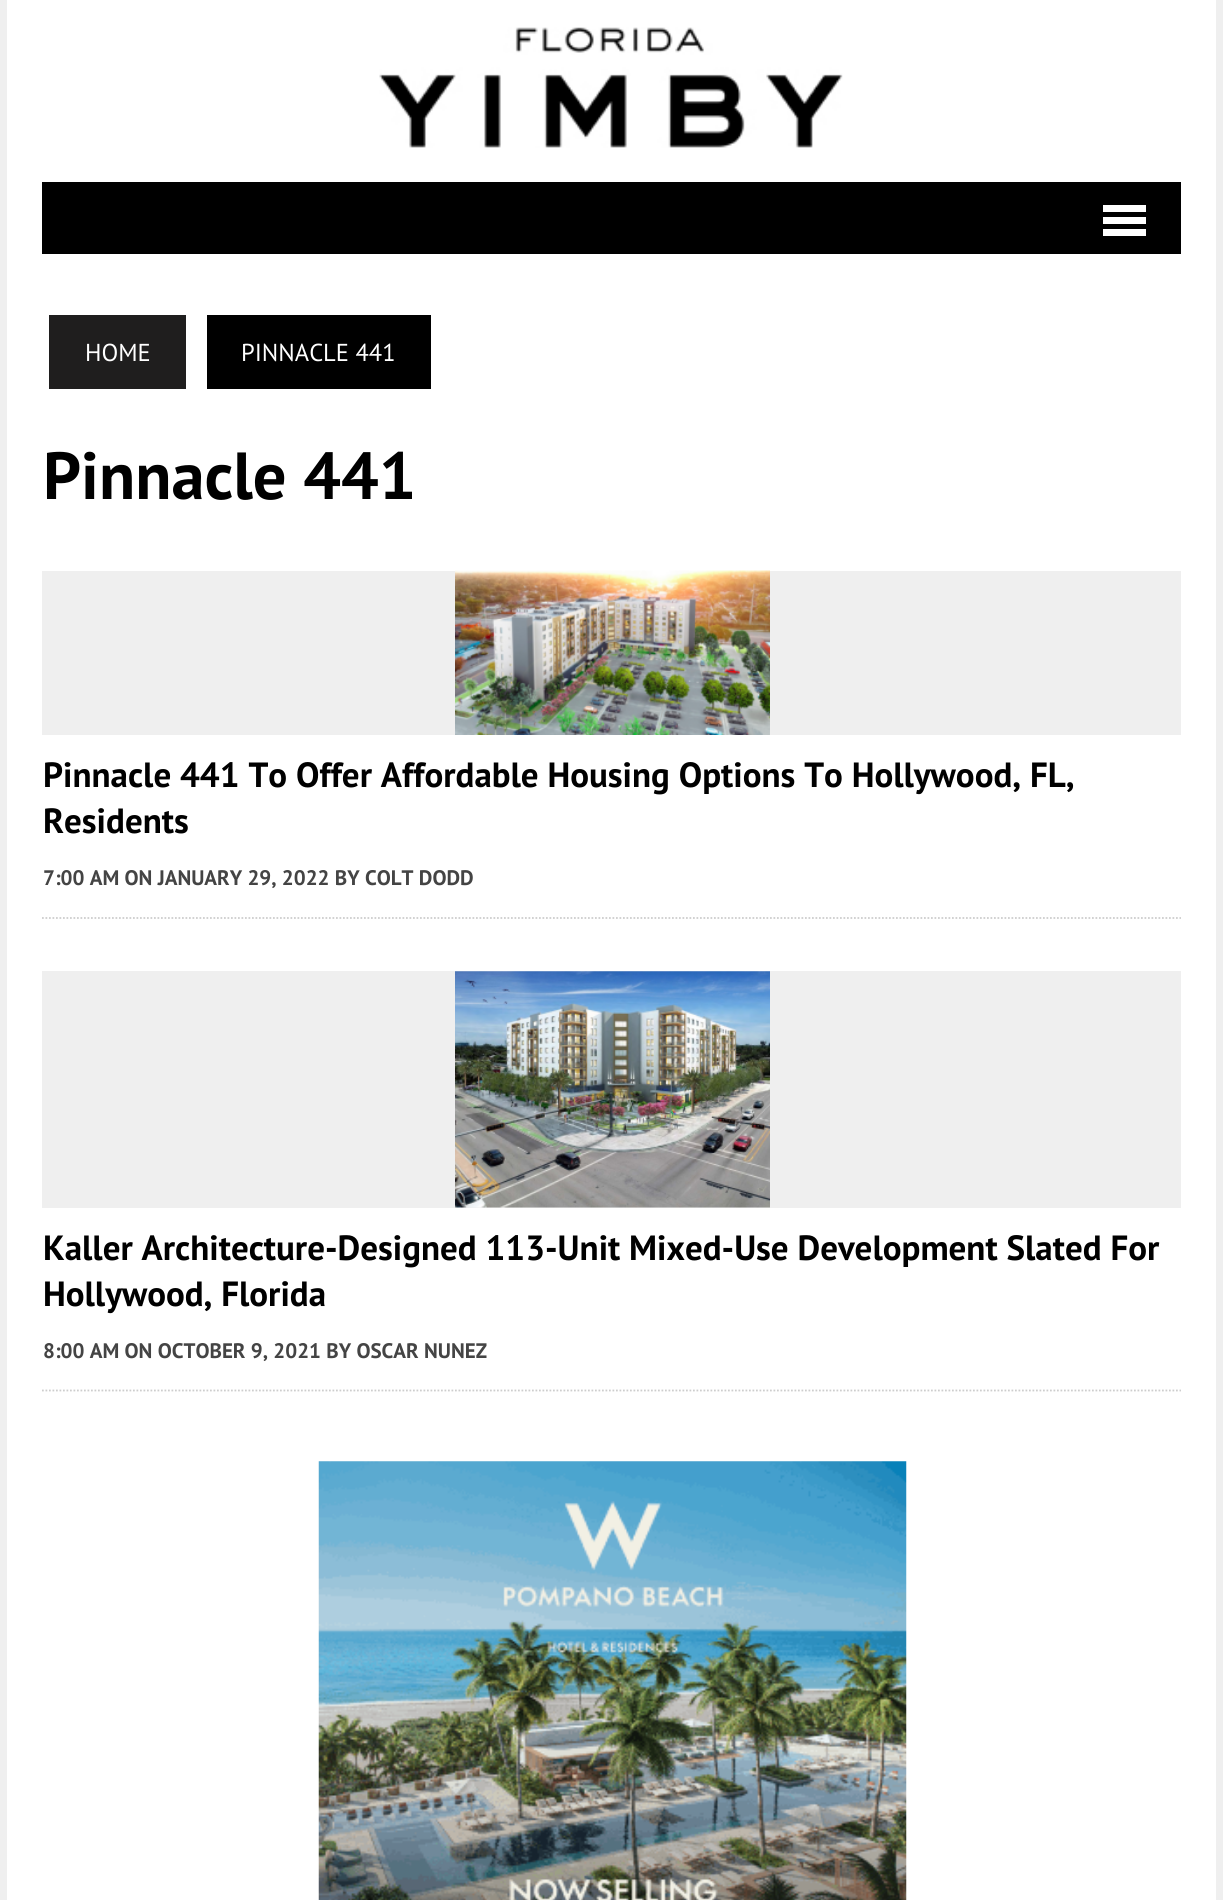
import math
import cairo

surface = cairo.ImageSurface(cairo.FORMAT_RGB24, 1223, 1900)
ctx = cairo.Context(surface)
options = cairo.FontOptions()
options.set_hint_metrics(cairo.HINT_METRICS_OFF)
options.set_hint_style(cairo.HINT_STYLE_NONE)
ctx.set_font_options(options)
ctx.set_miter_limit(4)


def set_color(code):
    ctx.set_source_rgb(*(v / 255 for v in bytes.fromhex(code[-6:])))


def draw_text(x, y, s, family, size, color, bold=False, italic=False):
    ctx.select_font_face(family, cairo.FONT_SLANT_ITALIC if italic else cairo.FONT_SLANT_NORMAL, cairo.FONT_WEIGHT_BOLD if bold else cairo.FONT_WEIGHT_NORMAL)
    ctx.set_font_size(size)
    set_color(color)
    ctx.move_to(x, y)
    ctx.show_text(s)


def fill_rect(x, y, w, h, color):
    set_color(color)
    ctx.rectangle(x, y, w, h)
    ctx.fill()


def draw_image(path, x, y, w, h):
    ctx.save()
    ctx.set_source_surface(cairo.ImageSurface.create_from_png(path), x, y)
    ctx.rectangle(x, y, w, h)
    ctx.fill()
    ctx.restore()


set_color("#efefef")
ctx.paint()
fill_rect(7, 0, 1209, 1900, "#ffffff")
draw_image("assets/img1.png", 379, 27, 464, 121)
fill_rect(42, 182, 1139, 72, "#000000")
fill_rect(1103, 205, 43, 7, "#ffffff")
fill_rect(1103, 217, 43, 7, "#ffffff")
fill_rect(1103, 229, 43, 7, "#ffffff")
fill_rect(49, 315, 137, 74, "#1f1e1e")
draw_text(85, 361, "HOME", "PT Sans", 24.5, "#ffffff")
fill_rect(207, 315, 224, 74, "#000000")
draw_text(241, 361, "PINNACLE 441", "PT Sans", 24.5, "#ffffff")
draw_text(43, 499, "Pinnacle 441", "PT Sans", 66.5, "#000000", bold=True)
fill_rect(42, 571, 1139, 164, "#efefef")
draw_image("assets/img2.png", 455, 570, 315, 165)
draw_text(43, 787, "Pinnacle 441 To Offer Affordable Housing Options To Hollywood, FL,", "PT Sans", 35, "#000000", bold=True)
draw_text(43, 833, "Residents", "PT Sans", 35, "#000000", bold=True)
draw_text(43, 885, "7:00 AM ON JANUARY 29, 2022 BY COLT DODD", "PT Sans", 21, "#444444", bold=True)
ctx.new_path()
ctx.move_to(42, 918)
ctx.line_to(1181, 918)
set_color("#cdcdcd")
ctx.set_line_width(1.8)
ctx.set_dash([1.75, 1.75])
ctx.stroke()
fill_rect(42, 971, 1139, 237, "#efefef")
draw_image("assets/img3.png", 455, 971, 315, 237)
draw_text(43, 1260, "Kaller Architecture-Designed 113-Unit Mixed-Use Development Slated For", "PT Sans", 35, "#000000", bold=True)
draw_text(43, 1306, "Hollywood, Florida", "PT Sans", 35, "#000000", bold=True)
draw_text(43, 1358, "8:00 AM ON OCTOBER 9, 2021 BY OSCAR NUNEZ", "PT Sans", 21, "#444444", bold=True)
ctx.new_path()
ctx.move_to(42, 1390.5)
ctx.line_to(1181, 1390.5)
set_color("#cdcdcd")
ctx.stroke()
draw_image("assets/img4.png", 318, 1461, 589, 439)
surface.write_to_png("output.png")
